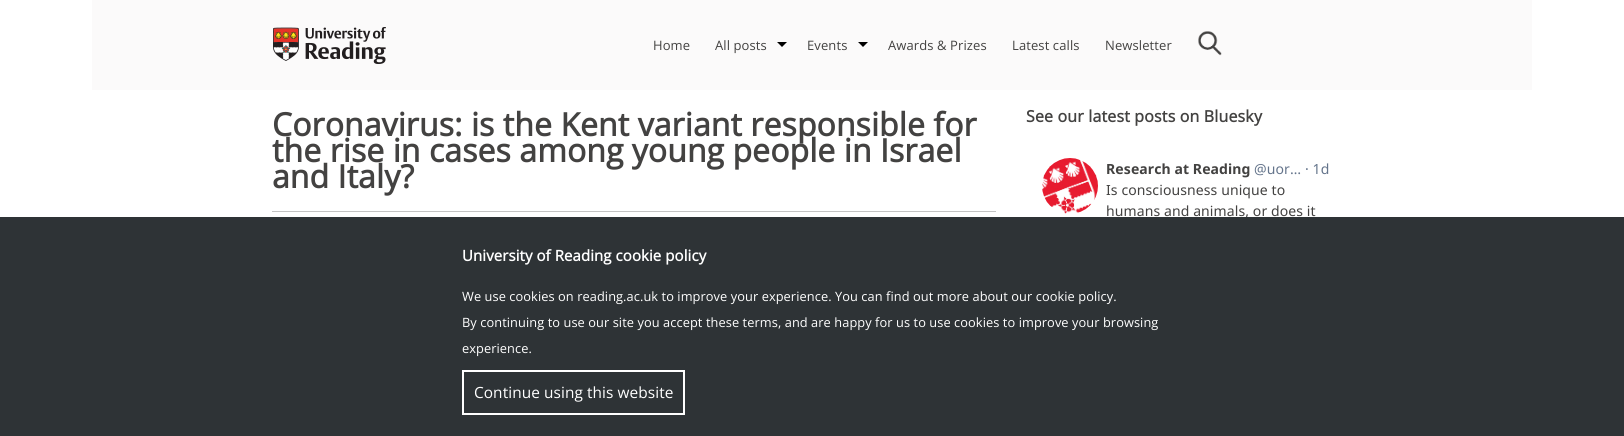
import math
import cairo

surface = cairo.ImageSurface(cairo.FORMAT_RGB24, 1624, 436)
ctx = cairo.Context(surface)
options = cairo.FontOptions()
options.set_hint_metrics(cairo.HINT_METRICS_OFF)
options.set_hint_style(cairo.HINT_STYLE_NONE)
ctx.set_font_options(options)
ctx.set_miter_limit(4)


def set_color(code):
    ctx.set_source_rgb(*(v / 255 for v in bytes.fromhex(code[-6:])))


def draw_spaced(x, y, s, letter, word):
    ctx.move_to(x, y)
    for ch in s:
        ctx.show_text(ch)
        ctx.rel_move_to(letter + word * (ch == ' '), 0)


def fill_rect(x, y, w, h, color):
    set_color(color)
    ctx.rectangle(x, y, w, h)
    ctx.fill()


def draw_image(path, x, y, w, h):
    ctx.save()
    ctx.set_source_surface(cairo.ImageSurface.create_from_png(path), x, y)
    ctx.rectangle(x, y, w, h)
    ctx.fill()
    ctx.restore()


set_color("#ffffff")
ctx.paint()
fill_rect(92, 0, 1440, 90, "#fbfafa")
draw_image("assets/img1.png", 273, 27, 113, 37)
ctx.select_font_face("Open Sans")
ctx.set_font_size(13)
set_color("#434241")
draw_spaced(653, 50, "Home", 0.1, 0)
draw_spaced(715, 50, "All posts", 0.1, 0)
set_color("#000000")
ctx.new_path()
ctx.move_to(777, 42)
ctx.line_to(787, 42)
ctx.line_to(782, 47)
ctx.close_path()
ctx.fill()
set_color("#434241")
draw_spaced(807, 50, "Events", 0.1, 0)
set_color("#000000")
ctx.new_path()
ctx.move_to(858, 42)
ctx.line_to(868, 42)
ctx.line_to(863, 47)
ctx.close_path()
ctx.fill()
set_color("#434241")
draw_spaced(888, 50, "Awards & Prizes", 0.1, 0)
draw_spaced(1012, 50, "Latest calls", 0.1, 0)
draw_spaced(1105, 50, "Newsletter", 0.1, 0)
draw_image("assets/img2.png", 1198, 31, 24, 25)
ctx.select_font_face("Open Sans", cairo.FONT_SLANT_NORMAL, cairo.FONT_WEIGHT_BOLD)
ctx.set_font_size(32)
draw_spaced(272, 136, "Coronavirus: is the Kent variant responsible for", 0.08, 0)
draw_spaced(272, 162, "the rise in cases among young people in Israel", 0.08, 0)
draw_spaced(272, 188, "and Italy?", 0.08, 0)
fill_rect(272, 211, 724, 1, "#c3c3c3")
ctx.set_font_size(16)
set_color("#434241")
draw_spaced(1026, 122, "See our latest posts on Bluesky", 0.15, 0)
draw_image("assets/img3.png", 1042, 158, 56, 56)
ctx.select_font_face("Noto Sans", cairo.FONT_SLANT_NORMAL, cairo.FONT_WEIGHT_BOLD)
ctx.set_font_size(14)
draw_spaced(1106, 174, "Research at Reading", 0.1, 0)
ctx.select_font_face("Noto Sans")
set_color("#64748b")
draw_spaced(1254, 174, "@uor…", 0.1, 0)
draw_spaced(1305, 174, "· 1d", 0.1, 0)
set_color("#434241")
draw_spaced(1106, 195, "Is consciousness unique to", 0.1, 0)
draw_spaced(1106, 216, "humans and animals, or does it", 0.1, 0)
fill_rect(0, 217, 1624, 219, "#2e3336")
ctx.select_font_face("Open Sans", cairo.FONT_SLANT_NORMAL, cairo.FONT_WEIGHT_BOLD)
ctx.set_font_size(15)
set_color("#ffffff")
draw_spaced(462, 261, "University of Reading cookie policy", 0.08, 0)
ctx.select_font_face("Open Sans")
ctx.set_font_size(12.8)
draw_spaced(462, 301, "We use cookies on reading.ac.uk to improve your experience. You can find out more about our cookie policy.", 0.08, 0)
draw_spaced(462, 327, "By continuing to use our site you accept these terms, and are happy for us to use cookies to improve your browsing", 0.08, 0)
draw_spaced(462, 353, "experience.", 0.08, 0)
ctx.rectangle(463, 371, 221, 43)
ctx.stroke()
ctx.set_font_size(15.4)
draw_spaced(474, 398, "Continue using this website", 0.08, 0)
surface.write_to_png("output.png")
